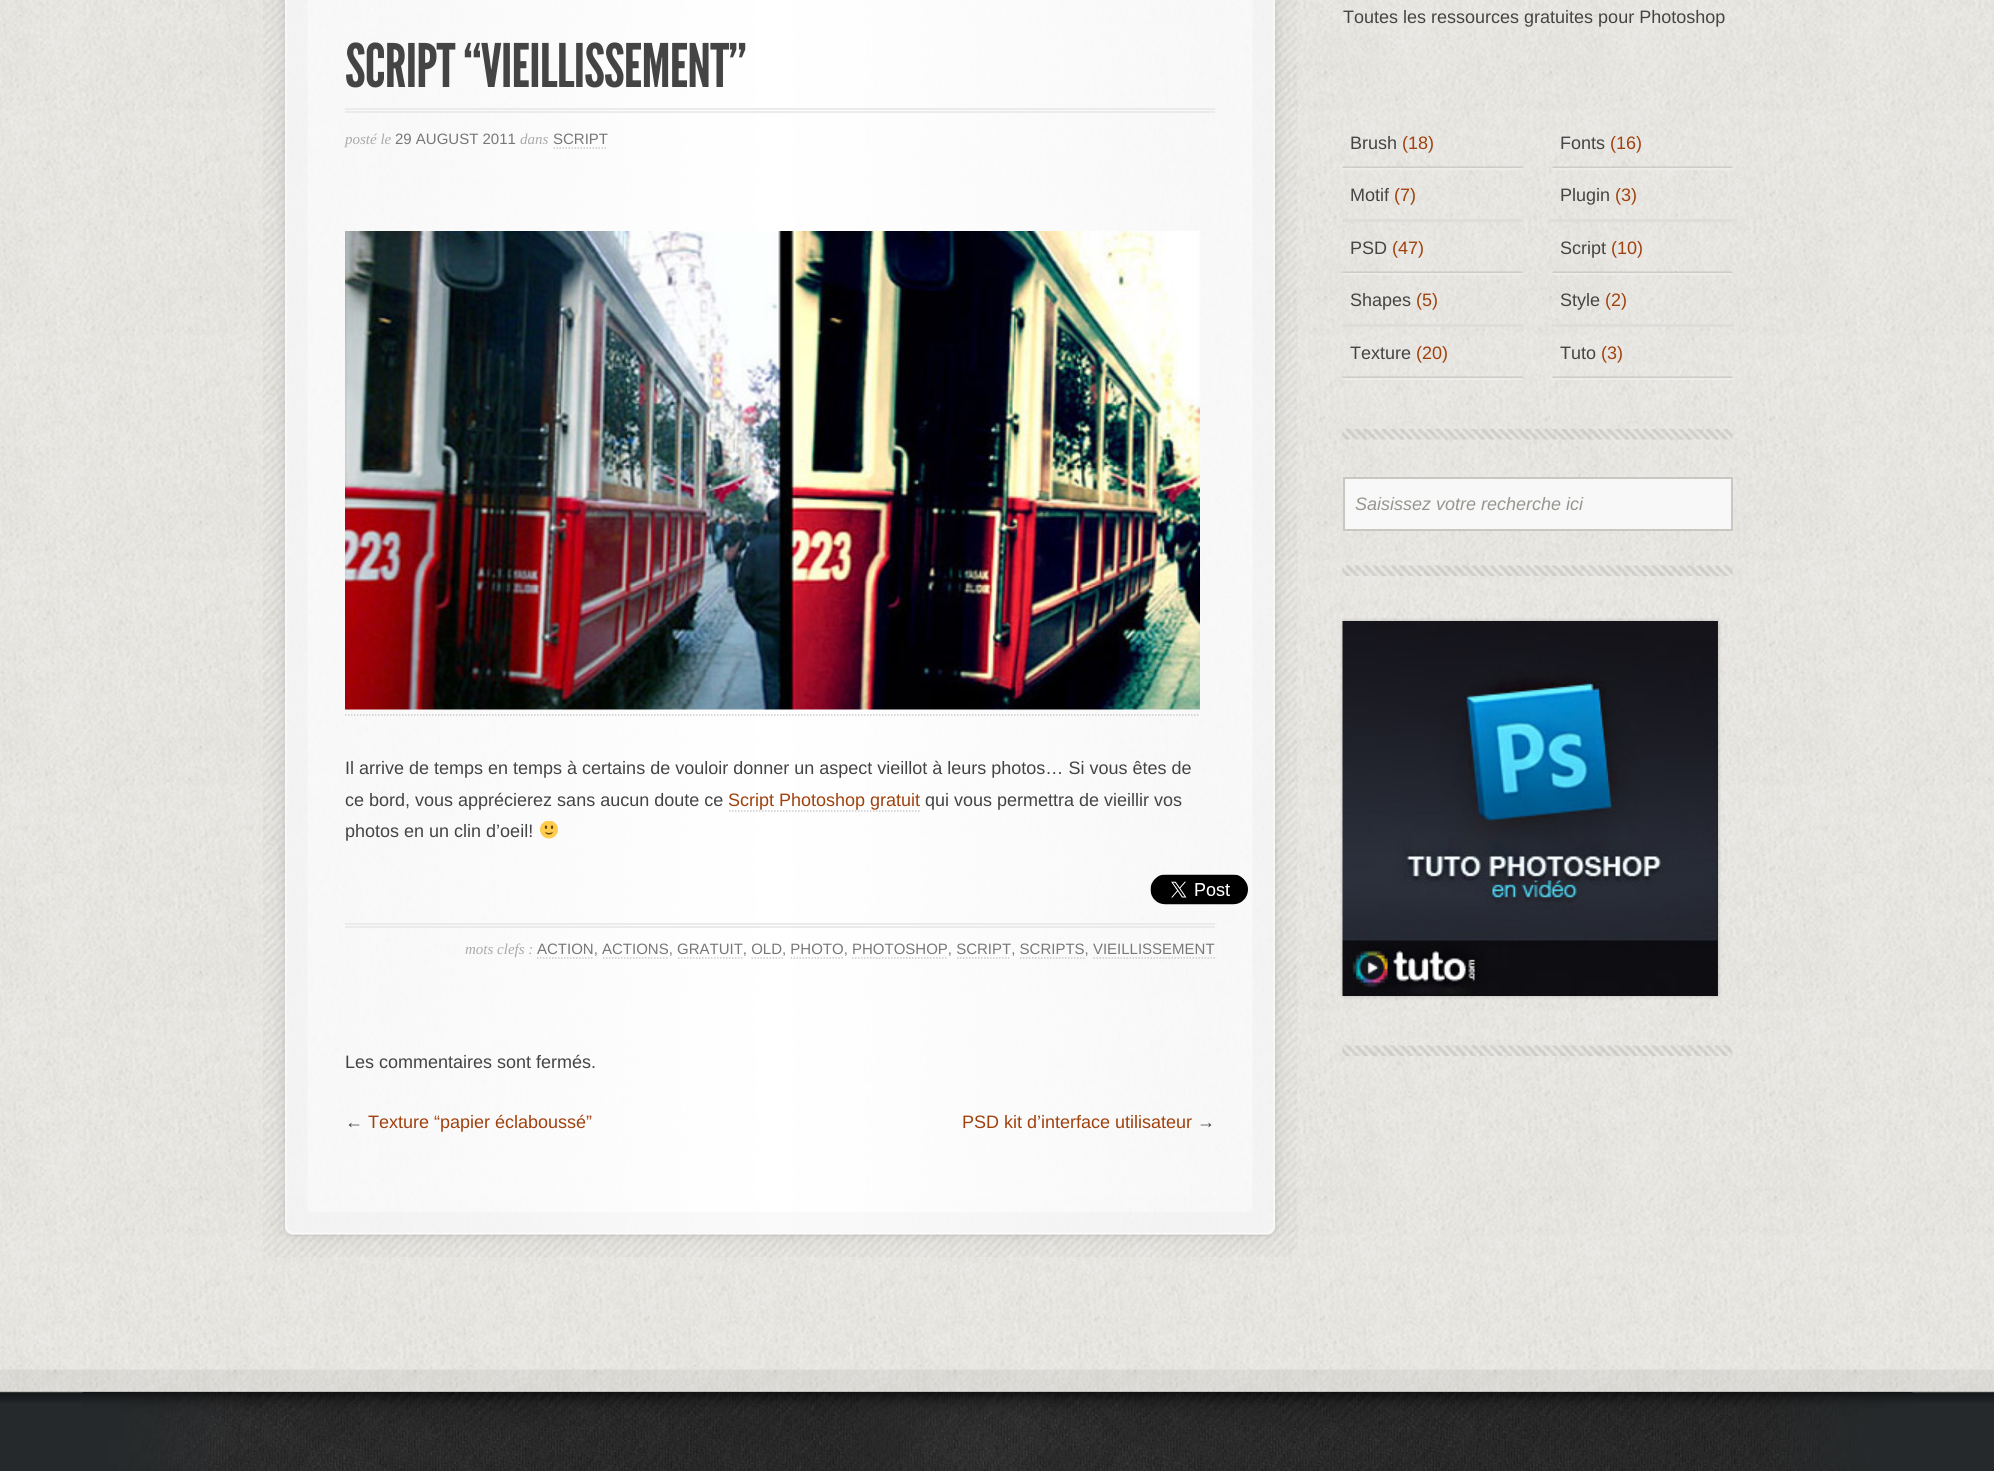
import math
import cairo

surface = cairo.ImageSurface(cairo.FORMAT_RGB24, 1994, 1471)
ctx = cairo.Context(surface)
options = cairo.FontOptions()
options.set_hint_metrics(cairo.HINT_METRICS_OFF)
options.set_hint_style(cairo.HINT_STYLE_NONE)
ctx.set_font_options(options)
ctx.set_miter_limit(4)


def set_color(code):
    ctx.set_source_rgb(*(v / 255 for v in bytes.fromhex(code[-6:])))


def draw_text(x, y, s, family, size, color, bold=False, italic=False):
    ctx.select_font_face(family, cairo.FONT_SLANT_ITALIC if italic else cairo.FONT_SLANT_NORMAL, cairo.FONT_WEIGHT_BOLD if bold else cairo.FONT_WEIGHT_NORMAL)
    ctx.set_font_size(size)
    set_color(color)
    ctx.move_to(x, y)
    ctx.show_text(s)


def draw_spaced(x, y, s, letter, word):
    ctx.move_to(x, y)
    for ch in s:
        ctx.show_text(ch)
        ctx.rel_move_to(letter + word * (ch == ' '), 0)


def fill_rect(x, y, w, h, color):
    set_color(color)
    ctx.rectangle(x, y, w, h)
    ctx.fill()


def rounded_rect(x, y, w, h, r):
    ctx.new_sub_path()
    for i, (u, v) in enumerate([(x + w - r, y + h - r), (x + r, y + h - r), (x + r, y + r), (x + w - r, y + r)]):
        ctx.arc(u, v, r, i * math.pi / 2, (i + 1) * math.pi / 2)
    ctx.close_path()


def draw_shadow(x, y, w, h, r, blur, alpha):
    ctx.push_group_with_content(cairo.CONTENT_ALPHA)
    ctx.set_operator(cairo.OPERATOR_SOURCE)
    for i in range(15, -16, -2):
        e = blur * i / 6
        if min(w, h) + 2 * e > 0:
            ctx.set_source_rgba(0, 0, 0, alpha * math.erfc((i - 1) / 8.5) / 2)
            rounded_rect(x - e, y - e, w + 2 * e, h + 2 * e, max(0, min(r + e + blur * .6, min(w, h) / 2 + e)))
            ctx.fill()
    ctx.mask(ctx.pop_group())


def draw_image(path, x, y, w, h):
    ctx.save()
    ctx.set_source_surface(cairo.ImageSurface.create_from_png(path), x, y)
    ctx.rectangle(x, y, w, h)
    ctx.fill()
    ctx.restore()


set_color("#ffffff")
ctx.paint()
draw_image("assets/img1.png", 0, 0, 1994, 1370)
draw_image("assets/img2.png", 263, 0, 1034, 1197)
fill_rect(345, 108, 870, 2, "#ebebeb")
fill_rect(345, 111, 870, 2, "#ebebeb")
ctx.select_font_face("League Gothic")
ctx.set_font_size(60)
set_color("#444444")
draw_spaced(345, 87, "SCRIPT “VIEILLISSEMENT”", -0.75, 0)
draw_text(345, 144, "posté le", "Liberation Serif", 15, "#aaaaaa", italic=True)
draw_text(395, 144, "29 AUGUST 2011", "Liberation Sans", 15, "#777777")
draw_text(520, 144, "dans", "Liberation Serif", 15, "#aaaaaa", italic=True)
draw_text(553, 144, "SCRIPT", "Liberation Sans", 15, "#777777")
ctx.new_path()
ctx.move_to(553.5, 148)
ctx.line_to(607.5, 148)
set_color("#cccccc")
ctx.set_line_width(1.5)
ctx.set_dash([1.5, 1.5])
ctx.stroke()
draw_image("assets/img3.png", 345, 231, 855, 479)
ctx.new_path()
ctx.move_to(345, 715)
ctx.line_to(1200, 715)
ctx.stroke()
draw_text(345, 774, "Il arrive de temps en temps à certains de vouloir donner un aspect vieillot à leurs photos… Si vous êtes de", "Liberation Sans", 18, "#444444")
draw_text(345, 806, "ce bord, vous apprécierez sans aucun doute ce", "Liberation Sans", 18, "#444444")
draw_text(728, 806, "Script Photoshop gratuit", "Liberation Sans", 18, "#a0410d")
ctx.new_path()
ctx.move_to(729, 811)
ctx.line_to(921, 811)
set_color("#cccccc")
ctx.stroke()
draw_text(925, 806, "qui vous permettra de vieillir vos", "Liberation Sans", 18, "#444444")
draw_text(345, 837, "photos en un clin d’oeil!", "Liberation Sans", 18, "#444444")
draw_image("assets/img4.png", 540, 821, 18, 18)
draw_image("assets/img5.png", 1150, 874, 98, 31)
fill_rect(345, 923, 870, 2, "#ebebeb")
fill_rect(345, 926, 870, 2, "#ebebeb")
draw_text(465, 954, "mots clefs :", "Liberation Serif", 15, "#aaaaaa", italic=True)
draw_text(537, 954, "ACTION, ACTIONS, GRATUIT, OLD, PHOTO, PHOTOSHOP, SCRIPT, SCRIPTS, VIEILLISSEMENT", "Liberation Sans", 15, "#777777")
ctx.new_path()
ctx.move_to(537, 958)
ctx.line_to(594, 958)
set_color("#cccccc")
ctx.stroke()
ctx.new_path()
ctx.move_to(603, 958)
ctx.line_to(669, 958)
ctx.stroke()
ctx.new_path()
ctx.move_to(678, 958)
ctx.line_to(742.5, 958)
ctx.stroke()
ctx.new_path()
ctx.move_to(751.5, 958)
ctx.line_to(783, 958)
ctx.stroke()
ctx.new_path()
ctx.move_to(790.5, 958)
ctx.line_to(844.5, 958)
ctx.stroke()
ctx.new_path()
ctx.move_to(852, 958)
ctx.line_to(948, 958)
ctx.stroke()
ctx.new_path()
ctx.move_to(957, 958)
ctx.line_to(1011, 958)
ctx.stroke()
ctx.new_path()
ctx.move_to(1020, 958)
ctx.line_to(1084.5, 958)
ctx.stroke()
ctx.new_path()
ctx.move_to(1093.5, 958)
ctx.line_to(1215, 958)
ctx.stroke()
draw_text(345, 1068, "Les commentaires sont fermés.", "Liberation Sans", 18, "#444444")
draw_text(345, 1128, "←", "Liberation Sans", 18, "#444444")
draw_text(368, 1128, "Texture “papier éclaboussé”", "Liberation Sans", 18, "#a0410d")
draw_text(962, 1128, "PSD kit d’interface utilisateur", "Liberation Sans", 18, "#a0410d")
draw_text(1197, 1128, "→", "Liberation Sans", 18, "#444444")
draw_image("assets/img6.png", 263, 1197, 1034, 60)
draw_text(1343, 23, "Toutes les ressources gratuites pour Photoshop", "Liberation Sans", 18, "#444444")
draw_image("assets/img7.png", 1342, 429, 391, 11)
draw_image("assets/img8.png", 1342, 166, 181, 4)
draw_text(1350, 149, "Brush", "Liberation Sans", 18, "#444444")
draw_text(1402, 149, "(18)", "Liberation Sans", 18, "#a0410d")
draw_image("assets/img9.png", 1552, 166, 181, 4)
draw_text(1560, 149, "Fonts", "Liberation Sans", 18, "#444444")
draw_text(1610, 149, "(16)", "Liberation Sans", 18, "#a0410d")
fill_rect(1342, 219, 181, 3, "#deddda")
draw_text(1350, 201, "Motif", "Liberation Sans", 18, "#444444")
draw_text(1394, 201, "(7)", "Liberation Sans", 18, "#a0410d")
fill_rect(1552, 219, 181, 3, "#deddda")
draw_text(1560, 201, "Plugin", "Liberation Sans", 18, "#444444")
draw_text(1615, 201, "(3)", "Liberation Sans", 18, "#a0410d")
draw_image("assets/img10.png", 1342, 271, 181, 4)
draw_text(1350, 254, "PSD", "Liberation Sans", 18, "#444444")
draw_text(1392, 254, "(47)", "Liberation Sans", 18, "#a0410d")
draw_image("assets/img11.png", 1552, 271, 181, 4)
draw_text(1560, 254, "Script", "Liberation Sans", 18, "#444444")
draw_text(1611, 254, "(10)", "Liberation Sans", 18, "#a0410d")
fill_rect(1342, 324, 181, 3, "#deddda")
draw_text(1350, 306, "Shapes", "Liberation Sans", 18, "#444444")
draw_text(1416, 306, "(5)", "Liberation Sans", 18, "#a0410d")
fill_rect(1552, 324, 181, 3, "#deddda")
draw_text(1560, 306, "Style", "Liberation Sans", 18, "#444444")
draw_text(1605, 306, "(2)", "Liberation Sans", 18, "#a0410d")
draw_image("assets/img12.png", 1342, 376, 181, 4)
draw_text(1350, 359, "Texture", "Liberation Sans", 18, "#444444")
draw_text(1416, 359, "(20)", "Liberation Sans", 18, "#a0410d")
draw_image("assets/img13.png", 1552, 376, 181, 4)
draw_text(1560, 359, "Tuto", "Liberation Sans", 18, "#444444")
draw_text(1601, 359, "(3)", "Liberation Sans", 18, "#a0410d")
draw_image("assets/img14.png", 1342, 565, 391, 11)
set_color("#f9f8f8")
ctx.rectangle(1344, 478, 388, 52)
ctx.fill_preserve()
set_color("#c8c7c2")
ctx.set_line_width(2)
ctx.set_dash([])
ctx.stroke()
draw_text(1355, 510, "Saisissez votre recherche ici", "Liberation Sans", 18, "#96958f", italic=True)
draw_image("assets/img15.png", 1342, 1045, 391, 11)
set_color("#000000")
draw_shadow(1343, 621, 375, 375, 0, 2, 0.2)
fill_rect(1717, 621, 1, 375, "#202321")
draw_image("assets/img16.png", 1342, 621, 376, 375)
fill_rect(0, 1403, 1994, 68, "#25292b")
draw_image("assets/img17.png", 0, 1369, 1994, 34)
draw_image("assets/img18.png", 82, 1392, 1831, 79)
surface.write_to_png("output.png")
